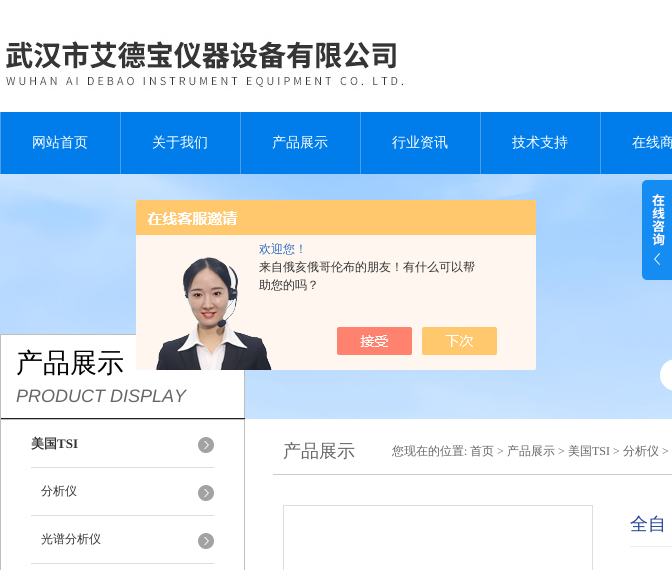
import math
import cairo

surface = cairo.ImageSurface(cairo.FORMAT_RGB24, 672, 570)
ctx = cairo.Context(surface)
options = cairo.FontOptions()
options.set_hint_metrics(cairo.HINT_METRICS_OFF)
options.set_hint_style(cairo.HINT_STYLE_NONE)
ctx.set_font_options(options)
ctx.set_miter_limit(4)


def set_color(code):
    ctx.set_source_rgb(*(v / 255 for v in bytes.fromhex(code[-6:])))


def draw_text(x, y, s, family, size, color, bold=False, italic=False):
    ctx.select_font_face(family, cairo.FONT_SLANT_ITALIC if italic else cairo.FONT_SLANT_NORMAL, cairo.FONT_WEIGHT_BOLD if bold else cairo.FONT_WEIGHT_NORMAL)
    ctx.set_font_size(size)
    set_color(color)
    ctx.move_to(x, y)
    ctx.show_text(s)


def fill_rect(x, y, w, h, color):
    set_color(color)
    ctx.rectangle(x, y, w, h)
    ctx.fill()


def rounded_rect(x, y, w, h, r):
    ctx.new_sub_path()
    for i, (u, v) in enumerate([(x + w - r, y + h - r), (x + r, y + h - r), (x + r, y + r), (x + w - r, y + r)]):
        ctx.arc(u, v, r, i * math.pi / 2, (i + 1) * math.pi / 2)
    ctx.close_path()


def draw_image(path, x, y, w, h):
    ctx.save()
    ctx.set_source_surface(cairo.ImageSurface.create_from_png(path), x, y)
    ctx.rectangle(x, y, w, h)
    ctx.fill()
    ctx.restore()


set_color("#ffffff")
ctx.paint()
draw_image("assets/img1.png", 5, 34, 401, 56)
fill_rect(1, 112, 671, 62, "#007deb")
draw_image("assets/img2.png", 0, 112, 1, 62)
draw_text(32, 147, "网站首页", "WenQuanYi Zen Hei Medium", 14, "#ffffff")
draw_image("assets/img2.png", 120, 112, 1, 62)
draw_text(152, 147, "关于我们", "WenQuanYi Zen Hei Medium", 14, "#ffffff")
draw_image("assets/img2.png", 240, 112, 1, 62)
draw_text(272, 147, "产品展示", "WenQuanYi Zen Hei Medium", 14, "#ffffff")
draw_image("assets/img2.png", 360, 112, 1, 62)
draw_text(392, 147, "行业资讯", "WenQuanYi Zen Hei Medium", 14, "#ffffff")
draw_image("assets/img2.png", 480, 112, 1, 62)
draw_text(512, 147, "技术支持", "WenQuanYi Zen Hei Medium", 14, "#ffffff")
draw_image("assets/img2.png", 600, 112, 1, 62)
draw_text(632, 147, "在线商", "WenQuanYi Zen Hei Medium", 14, "#ffffff")
draw_image("assets/img3.png", 0, 174, 672, 245)
fill_rect(1, 335, 243, 83, "#ffffff")
draw_image("assets/img4.png", 136, 200, 400, 170)
draw_text(259, 253, "欢迎您！", "WenQuanYi Zen Hei Medium", 12, "#2e6ec6")
draw_text(259, 271, "来自俄亥俄哥伦布的朋友！有什么可以帮", "WenQuanYi Zen Hei Medium", 12, "#333333")
draw_text(259, 289, "助您的吗？", "WenQuanYi Zen Hei Medium", 12, "#333333")
draw_image("assets/img5.png", 642, 180, 30, 100)
fill_rect(0, 334, 136, 1, "#bebebe")
fill_rect(244, 370, 1, 49, "#bebebe")
fill_rect(0, 418, 245, 1, "#23201d")
fill_rect(0, 334, 1, 85, "#bebebe")
draw_text(16, 372, "产品展示", "WenQuanYi Zen Hei Medium", 27, "#000000")
draw_text(16, 402, "PRODUCT DISPLAY", "Liberation Sans", 18, "#666666", italic=True)
set_color("#ffffff")
rounded_rect(660, 359, 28, 32, 16)
ctx.fill()
ctx.rectangle(0.5, 419.5, 244, 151)
set_color("#bebebe")
ctx.set_line_width(1)
ctx.stroke()
draw_image("assets/img6.png", 198, 437, 16, 16)
fill_rect(31, 467, 183, 1, "#dddddd")
draw_text(31, 448, "美国", "WenQuanYi Zen Hei", 13, "#333333", bold=True)
draw_text(57, 448, "TSI", "Liberation Serif", 13, "#333333", bold=True)
draw_image("assets/img6.png", 198, 485, 16, 16)
fill_rect(31, 515, 183, 1, "#dddddd")
draw_text(41, 495, "分析仪", "WenQuanYi Zen Hei Medium", 12, "#333333")
draw_image("assets/img6.png", 198, 533, 16, 16)
fill_rect(31, 563, 183, 1, "#dddddd")
draw_text(41, 543, "光谱分析仪", "WenQuanYi Zen Hei Medium", 12, "#333333")
fill_rect(273, 474, 399, 1, "#cccccc")
draw_text(283, 457, "产品展示", "WenQuanYi Zen Hei Medium", 18, "#666666")
draw_text(392, 455, "您现在的位置", "WenQuanYi Zen Hei Medium", 12, "#666666")
draw_text(464, 455, ":", "Liberation Serif", 12, "#666666")
draw_text(470, 455, "首页", "WenQuanYi Zen Hei Medium", 12, "#666666")
draw_text(497, 455, ">", "Liberation Serif", 12, "#666666")
draw_text(507, 455, "产品展示", "WenQuanYi Zen Hei Medium", 12, "#666666")
draw_text(558, 455, ">", "Liberation Serif", 12, "#666666")
draw_text(568, 455, "美国", "WenQuanYi Zen Hei Medium", 12, "#666666")
draw_text(592, 455, "TSI >", "Liberation Serif", 12, "#666666")
draw_text(623, 455, "分析仪", "WenQuanYi Zen Hei Medium", 12, "#666666")
draw_text(662, 455, ">", "Liberation Serif", 12, "#666666")
ctx.rectangle(283.5, 505.5, 309, 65)
set_color("#dddddd")
ctx.stroke()
fill_rect(630, 546, 42, 1, "#eeeeee")
draw_text(630, 530, "全自", "WenQuanYi Zen Hei Medium", 18, "#22469a")
surface.write_to_png("output.png")
